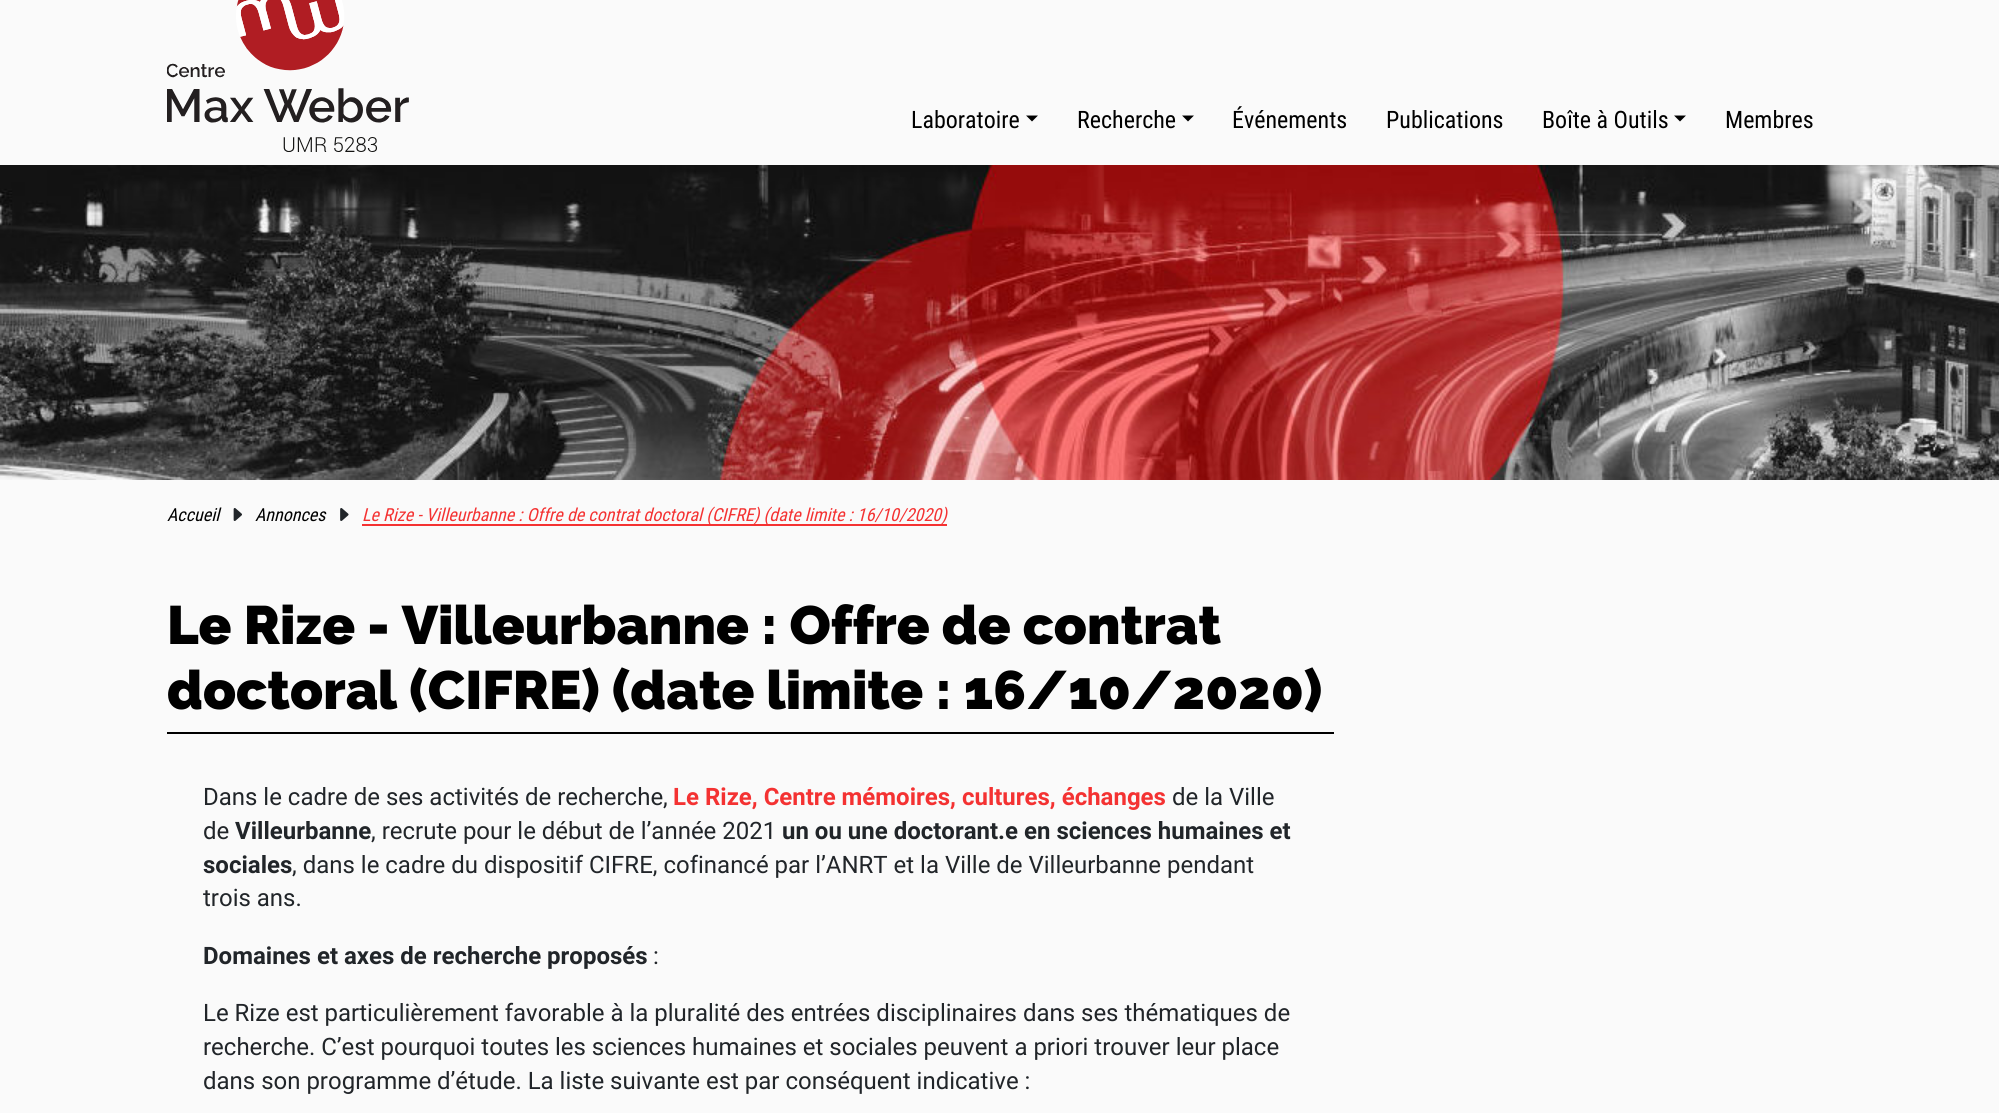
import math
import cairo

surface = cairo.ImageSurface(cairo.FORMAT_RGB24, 1999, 1113)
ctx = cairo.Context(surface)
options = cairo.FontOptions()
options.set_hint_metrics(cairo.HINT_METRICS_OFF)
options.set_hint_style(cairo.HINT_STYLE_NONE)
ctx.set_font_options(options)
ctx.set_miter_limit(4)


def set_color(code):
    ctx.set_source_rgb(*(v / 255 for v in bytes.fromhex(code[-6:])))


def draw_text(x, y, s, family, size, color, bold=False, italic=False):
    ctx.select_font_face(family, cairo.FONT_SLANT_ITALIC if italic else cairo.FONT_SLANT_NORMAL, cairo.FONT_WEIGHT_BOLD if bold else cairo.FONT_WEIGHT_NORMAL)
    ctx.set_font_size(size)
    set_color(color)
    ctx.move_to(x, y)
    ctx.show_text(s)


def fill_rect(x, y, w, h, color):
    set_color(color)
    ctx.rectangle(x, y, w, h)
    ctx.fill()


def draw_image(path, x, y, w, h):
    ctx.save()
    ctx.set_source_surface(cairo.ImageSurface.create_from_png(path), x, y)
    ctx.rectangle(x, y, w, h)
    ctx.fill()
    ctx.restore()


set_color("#fafafa")
ctx.paint()
draw_image("assets/img1.png", 167, 0, 242, 152)
draw_text(911, 128, "Laboratoire", "Roboto Condensed", 24, "#000000")
ctx.new_path()
ctx.move_to(1026, 115.5)
ctx.line_to(1038, 115.5)
ctx.line_to(1032, 121.5)
ctx.close_path()
ctx.fill()
draw_text(1077, 128, "Recherche", "Roboto Condensed", 24, "#000000")
ctx.new_path()
ctx.move_to(1182, 115.5)
ctx.line_to(1194, 115.5)
ctx.line_to(1188, 121.5)
ctx.close_path()
ctx.fill()
draw_text(1232, 128, "Événements", "Roboto Condensed", 24, "#000000")
draw_text(1386, 128, "Publications", "Roboto Condensed", 24, "#000000")
draw_text(1542, 128, "Boîte à Outils", "Roboto Condensed", 24, "#000000")
ctx.new_path()
ctx.move_to(1674, 115.5)
ctx.line_to(1686, 115.5)
ctx.line_to(1680, 121.5)
ctx.close_path()
ctx.fill()
draw_text(1725, 128, "Membres", "Roboto Condensed", 24, "#000000")
draw_image("assets/img2.png", 0, 165, 1999, 315)
draw_text(167, 521, "Accueil", "Roboto Condensed", 18, "#000000", italic=True)
draw_image("assets/img3.png", 233, 508, 9, 13)
draw_text(255, 521, "Annonces", "Roboto Condensed", 18, "#000000", italic=True)
draw_image("assets/img4.png", 340, 508, 9, 13)
fill_rect(362, 524, 585, 2, "#f43232")
draw_text(362, 521, "Le Rize - Villeurbanne : Offre de contrat doctoral (CIFRE) (date limite : 16/10/2020)", "Roboto Condensed", 18, "#f43232", italic=True)
fill_rect(167, 732, 1167, 2, "#000000")
draw_text(167, 644, "Le Rize - Villeurbanne : Offre de contrat", "Raleway Thin", 54, "#000000")
draw_text(167, 709, "doctoral (CIFRE) (date limite : 16/10/2020)", "Raleway Thin", 54, "#000000")
draw_text(203, 805, "Dans le cadre de ses activités de recherche,", "Roboto", 24, "#212529")
draw_text(673, 805, "Le Rize, Centre mémoires, cultures, échanges", "Roboto", 24, "#f43232", bold=True)
draw_text(1172, 805, "de la Ville", "Roboto", 24, "#212529")
draw_text(203, 839, "de", "Roboto", 24, "#212529")
draw_text(235, 839, "Villeurbanne", "Roboto", 24, "#212529", bold=True)
draw_text(371, 839, ", recrute pour le début de l’année 2021", "Roboto", 24, "#212529")
draw_text(782, 839, "un ou une doctorant.e en sciences humaines et", "Roboto", 24, "#212529", bold=True)
draw_text(203, 873, "sociales", "Roboto", 24, "#212529", bold=True)
draw_text(292, 873, ", dans le cadre du dispositif CIFRE, cofinancé par l’ANRT et la Ville de Villeurbanne pendant", "Roboto", 24, "#212529")
draw_text(203, 906, "trois ans.", "Roboto", 24, "#212529")
draw_text(203, 964, "Domaines et axes de recherche proposés", "Roboto", 24, "#212529", bold=True)
draw_text(653, 964, ":", "Roboto", 24, "#212529")
draw_text(203, 1021, "Le Rize est particulièrement favorable à la pluralité des entrées disciplinaires dans ses thématiques de", "Roboto", 24, "#212529")
draw_text(203, 1055, "recherche. C’est pourquoi toutes les sciences humaines et sociales peuvent a priori trouver leur place", "Roboto", 24, "#212529")
draw_text(203, 1089, "dans son programme d’étude. La liste suivante est par conséquent indicative :", "Roboto", 24, "#212529")
surface.write_to_png("output.png")
